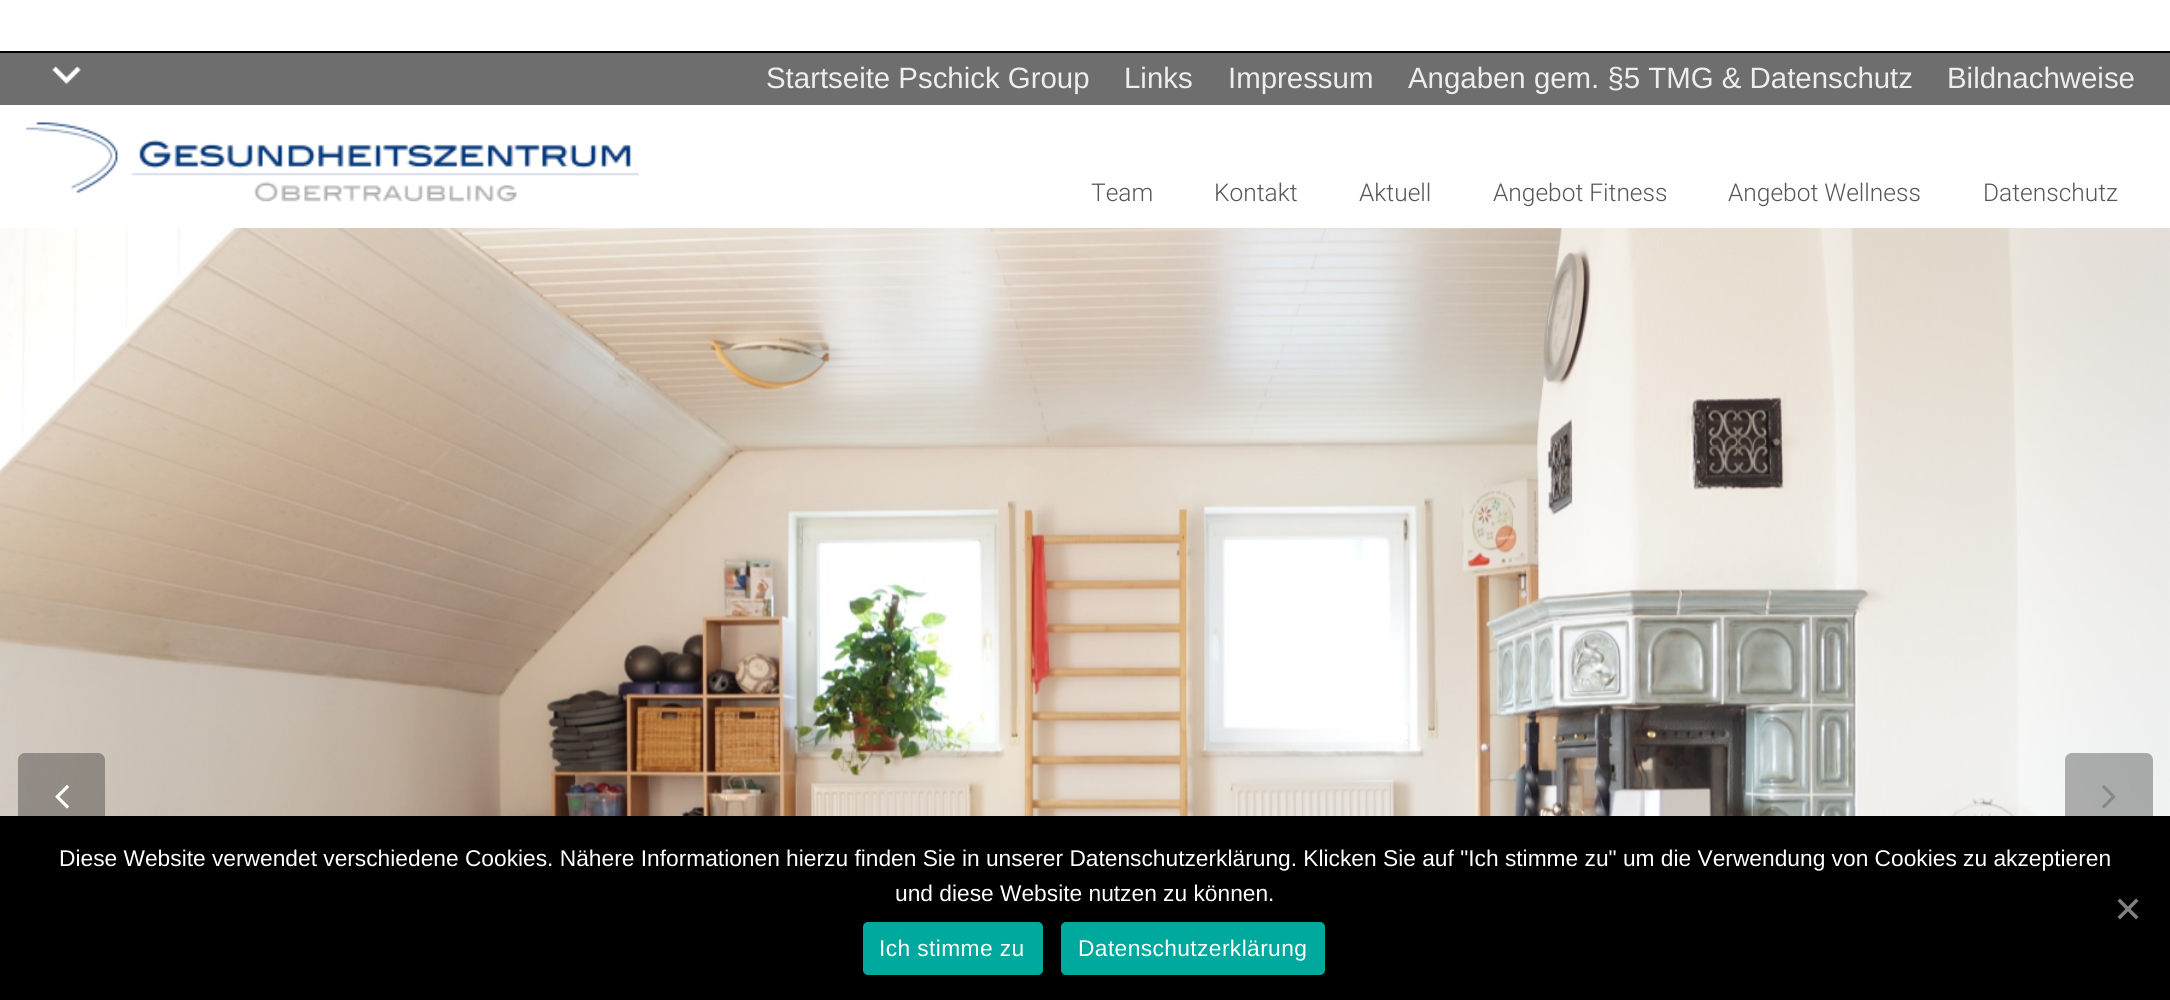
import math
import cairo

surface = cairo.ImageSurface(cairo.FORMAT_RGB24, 2170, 1000)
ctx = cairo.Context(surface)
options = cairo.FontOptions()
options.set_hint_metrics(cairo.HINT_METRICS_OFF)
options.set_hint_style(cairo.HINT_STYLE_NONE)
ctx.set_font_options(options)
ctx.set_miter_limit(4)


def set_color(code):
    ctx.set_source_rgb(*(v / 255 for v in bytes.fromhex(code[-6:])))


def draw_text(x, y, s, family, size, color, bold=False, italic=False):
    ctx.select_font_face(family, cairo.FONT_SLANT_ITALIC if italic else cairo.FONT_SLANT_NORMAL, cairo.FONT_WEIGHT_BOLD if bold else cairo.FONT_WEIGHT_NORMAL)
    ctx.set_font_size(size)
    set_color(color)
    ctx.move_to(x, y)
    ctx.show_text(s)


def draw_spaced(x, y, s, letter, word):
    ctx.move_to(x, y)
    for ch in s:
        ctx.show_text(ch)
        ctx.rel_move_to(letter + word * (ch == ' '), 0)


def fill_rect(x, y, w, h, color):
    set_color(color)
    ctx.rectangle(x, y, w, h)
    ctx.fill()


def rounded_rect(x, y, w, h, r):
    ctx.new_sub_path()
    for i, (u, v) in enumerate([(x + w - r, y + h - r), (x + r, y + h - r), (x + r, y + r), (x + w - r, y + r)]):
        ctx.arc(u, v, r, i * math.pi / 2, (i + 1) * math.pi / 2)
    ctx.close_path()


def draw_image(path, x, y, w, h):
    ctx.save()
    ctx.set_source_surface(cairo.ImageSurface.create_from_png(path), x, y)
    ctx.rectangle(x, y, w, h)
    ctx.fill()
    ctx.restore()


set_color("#ffffff")
ctx.paint()
fill_rect(0, 53, 2170, 52, "#6e6e6e")
fill_rect(0, 51, 2170, 2, "#000000")
draw_image("assets/img1.png", 52, 66, 29, 19)
draw_text(766, 88, "Startseite Pschick Group", "Liberation Sans", 29.4, "#eeeeee")
draw_text(1124, 88, "Links", "Liberation Sans", 29.4, "#eeeeee")
draw_text(1228, 88, "Impressum", "Liberation Sans", 29.4, "#eeeeee")
draw_text(1408, 88, "Angaben gem. §5 TMG & Datenschutz", "Liberation Sans", 29.4, "#eeeeee")
draw_text(1947, 88, "Bildnachweise", "Liberation Sans", 29.4, "#eeeeee")
draw_image("assets/img2.png", 26, 122, 613, 80)
draw_text(1091, 201, "Team", "Roboto Light", 24.5, "#565656")
draw_text(1214, 201, "Kontakt", "Roboto Light", 24.5, "#565656")
draw_text(1359, 201, "Aktuell", "Roboto Light", 24.5, "#565656")
draw_text(1493, 201, "Angebot Fitness", "Roboto Light", 24.5, "#565656")
draw_text(1728, 201, "Angebot Wellness", "Roboto Light", 24.5, "#565656")
draw_text(1983, 201, "Datenschutz", "Roboto Light", 24.5, "#565656")
draw_image("assets/img3.png", 0, 228, 2170, 588)
ctx.set_source_rgba(0, 0, 0, 0.3)
rounded_rect(18, 753, 87, 87, 7)
ctx.fill()
draw_image("assets/img4.png", 55, 785, 14, 24)
rounded_rect(2065, 753, 88, 87, 7)
ctx.fill()
draw_image("assets/img5.png", 2102, 785, 14, 24)
fill_rect(0, 816, 2170, 184, "#000000")
draw_text(59, 866, "Diese Website verwendet verschiedene Cookies. Nähere Informationen hierzu finden Sie in unserer Datenschutzerklärung. Klicken Sie auf \"Ich stimme zu\" um die Verwendung von Cookies zu akzeptieren", "Liberation Sans", 22.75, "#ffffff")
draw_text(895, 901, "und diese Website nutzen zu können.", "Liberation Sans", 22.75, "#ffffff")
set_color("#808080")
ctx.new_path()
ctx.move_to(2136, 898.5)
ctx.line_to(2138.5, 901)
ctx.line_to(2120, 919.5)
ctx.line_to(2117.5, 917)
ctx.close_path()
ctx.fill()
ctx.new_path()
ctx.move_to(2117.5, 901)
ctx.line_to(2120, 898.5)
ctx.line_to(2138.5, 917)
ctx.line_to(2136, 919.5)
ctx.close_path()
ctx.fill()
set_color("#00a99d")
rounded_rect(863, 922, 180, 53, 5)
ctx.fill()
set_color("#ffffff")
draw_spaced(879, 956, "Ich stimme zu", 0.4, 0)
set_color("#00a99d")
rounded_rect(1061, 922, 264, 53, 5)
ctx.fill()
set_color("#ffffff")
draw_spaced(1078, 956, "Datenschutzerklärung", 0.4, 0)
surface.write_to_png("output.png")
